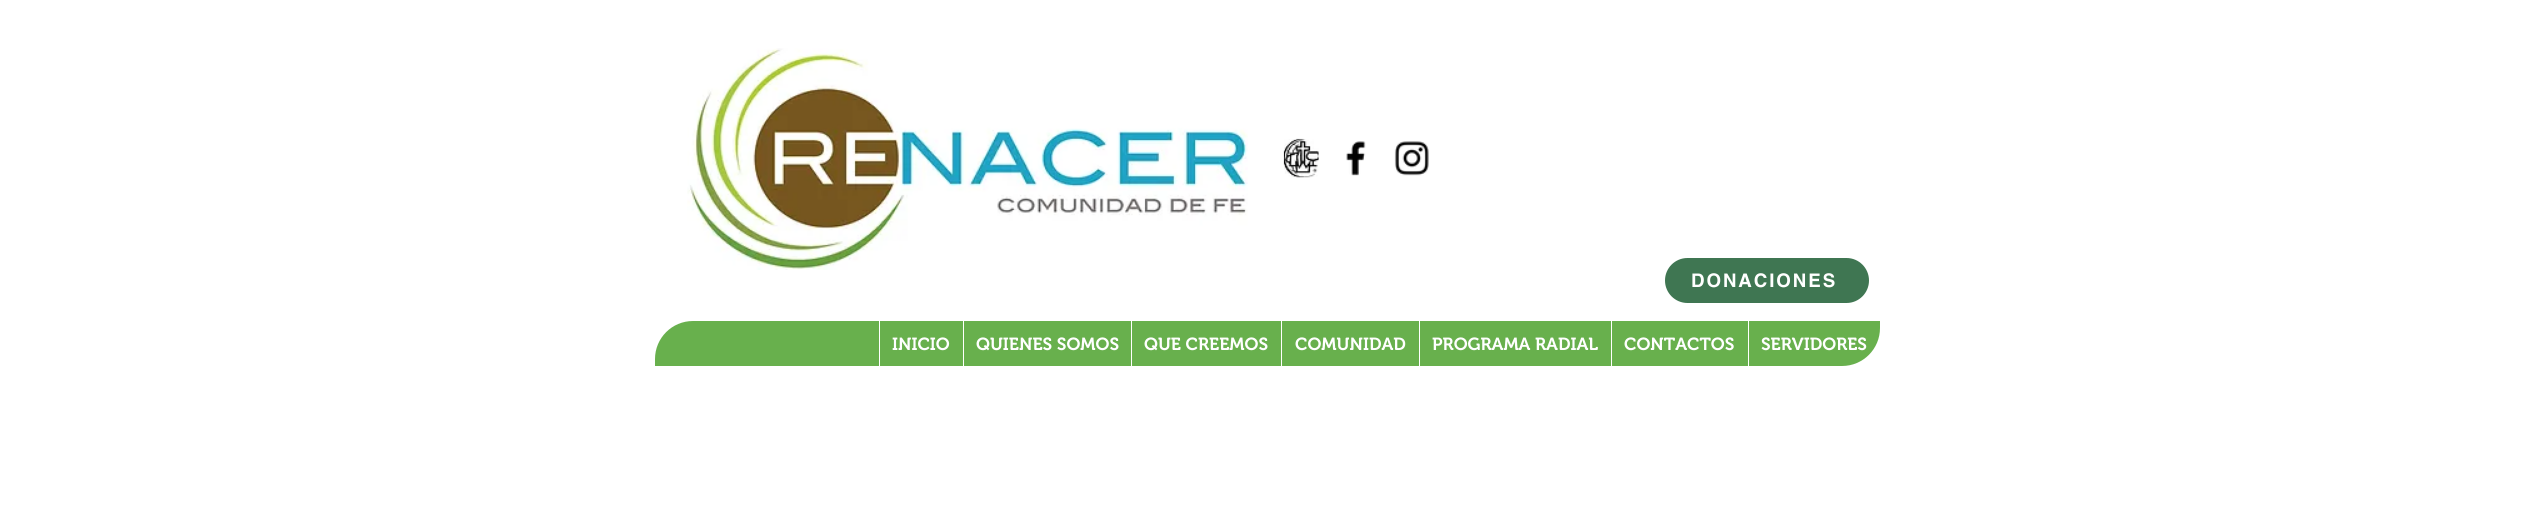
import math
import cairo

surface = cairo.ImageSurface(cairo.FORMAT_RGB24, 2548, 529)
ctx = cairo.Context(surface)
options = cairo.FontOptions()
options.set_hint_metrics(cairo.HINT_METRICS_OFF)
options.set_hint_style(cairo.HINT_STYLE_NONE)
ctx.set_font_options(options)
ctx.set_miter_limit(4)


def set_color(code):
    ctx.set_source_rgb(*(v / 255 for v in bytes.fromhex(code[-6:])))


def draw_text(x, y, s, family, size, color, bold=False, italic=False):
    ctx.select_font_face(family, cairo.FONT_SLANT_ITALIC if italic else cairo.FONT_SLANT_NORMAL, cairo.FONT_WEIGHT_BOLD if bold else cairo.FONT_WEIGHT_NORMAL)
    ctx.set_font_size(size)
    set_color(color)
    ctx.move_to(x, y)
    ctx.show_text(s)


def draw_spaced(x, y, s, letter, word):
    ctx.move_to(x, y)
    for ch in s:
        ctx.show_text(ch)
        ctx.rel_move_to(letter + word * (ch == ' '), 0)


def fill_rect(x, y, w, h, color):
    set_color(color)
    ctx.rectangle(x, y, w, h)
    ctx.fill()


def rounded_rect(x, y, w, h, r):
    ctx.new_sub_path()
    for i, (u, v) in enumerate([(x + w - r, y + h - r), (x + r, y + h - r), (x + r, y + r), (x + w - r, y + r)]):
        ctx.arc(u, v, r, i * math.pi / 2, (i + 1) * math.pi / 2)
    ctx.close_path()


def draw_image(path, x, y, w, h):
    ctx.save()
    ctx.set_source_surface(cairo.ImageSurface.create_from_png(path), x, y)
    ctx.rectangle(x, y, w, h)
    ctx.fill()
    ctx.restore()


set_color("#ffffff")
ctx.paint()
draw_image("assets/img1.png", 687, 48, 561, 222)
draw_image("assets/img2.png", 1283, 138, 36, 40)
draw_image("assets/img3.png", 1346, 141, 20, 35)
draw_image("assets/img4.png", 1394, 141, 35, 35)
set_color("#3f7652")
rounded_rect(1665, 258, 204, 45, 22.5)
ctx.fill()
ctx.select_font_face("helvetica", cairo.FONT_SLANT_NORMAL, cairo.FONT_WEIGHT_BOLD)
ctx.set_font_size(18.75)
set_color("#ffffff")
draw_spaced(1691, 287, "DONACIONES", 1.9, 0)
set_color("#68b04d")
ctx.new_path()
ctx.move_to(693, 321)
ctx.line_to(1880, 321)
ctx.line_to(1880, 328)
ctx.curve_to(1880, 349, 1863, 366, 1842, 366)
ctx.line_to(655, 366)
ctx.line_to(655, 359)
ctx.curve_to(655, 338, 672, 321, 693, 321)
ctx.close_path()
ctx.fill()
fill_rect(879, 321, 1, 45, "#ffffff")
draw_text(892, 350, "INICIO", "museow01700 SemiBold", 17.5, "#ffffff")
fill_rect(963, 321, 1, 45, "#ffffff")
draw_text(976, 350, "QUIENES SOMOS", "museow01700 SemiBold", 17.5, "#ffffff")
fill_rect(1131, 321, 1, 45, "#ffffff")
draw_text(1144, 350, "QUE CREEMOS", "museow01700 SemiBold", 17.5, "#ffffff")
fill_rect(1281, 321, 1, 45, "#ffffff")
draw_text(1295, 350, "COMUNIDAD", "museow01700 SemiBold", 17.5, "#ffffff")
fill_rect(1419, 321, 1, 45, "#ffffff")
draw_text(1432, 350, "PROGRAMA RADIAL", "museow01700 SemiBold", 17.5, "#ffffff")
fill_rect(1611, 321, 1, 45, "#ffffff")
draw_text(1624, 350, "CONTACTOS", "museow01700 SemiBold", 17.5, "#ffffff")
fill_rect(1748, 321, 1, 45, "#ffffff")
draw_text(1761, 350, "SERVIDORES", "museow01700 SemiBold", 17.5, "#ffffff")
surface.write_to_png("output.png")
